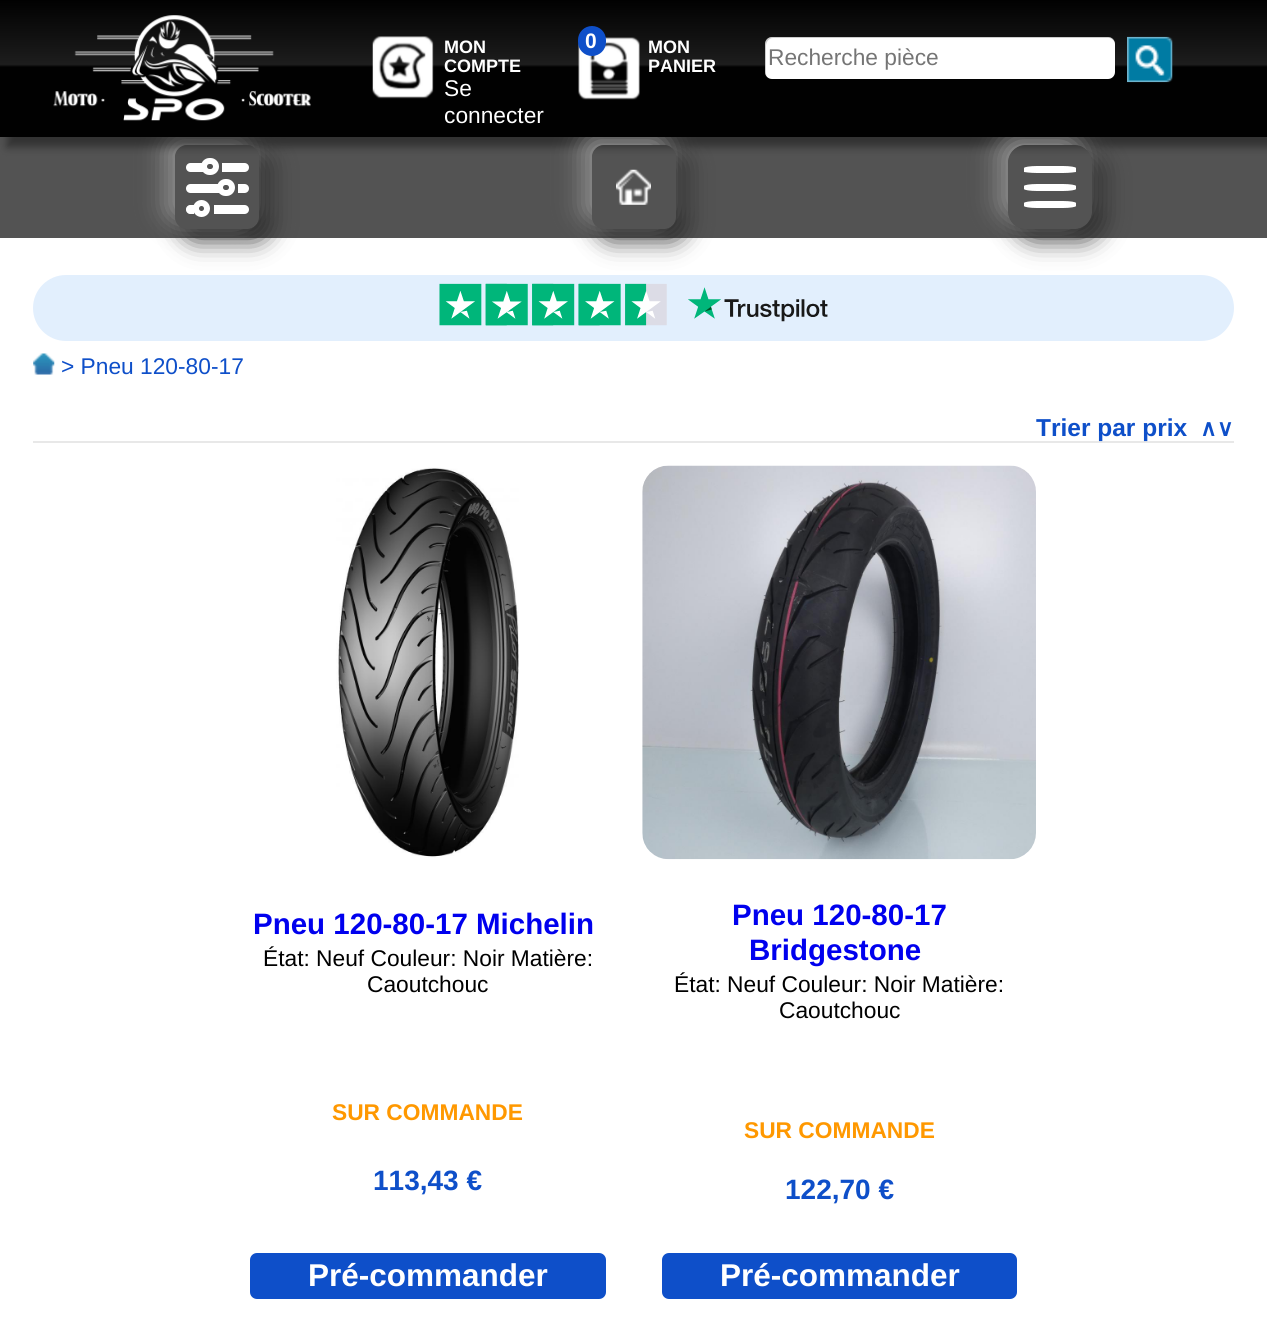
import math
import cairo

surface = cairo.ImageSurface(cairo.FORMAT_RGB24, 1267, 1320)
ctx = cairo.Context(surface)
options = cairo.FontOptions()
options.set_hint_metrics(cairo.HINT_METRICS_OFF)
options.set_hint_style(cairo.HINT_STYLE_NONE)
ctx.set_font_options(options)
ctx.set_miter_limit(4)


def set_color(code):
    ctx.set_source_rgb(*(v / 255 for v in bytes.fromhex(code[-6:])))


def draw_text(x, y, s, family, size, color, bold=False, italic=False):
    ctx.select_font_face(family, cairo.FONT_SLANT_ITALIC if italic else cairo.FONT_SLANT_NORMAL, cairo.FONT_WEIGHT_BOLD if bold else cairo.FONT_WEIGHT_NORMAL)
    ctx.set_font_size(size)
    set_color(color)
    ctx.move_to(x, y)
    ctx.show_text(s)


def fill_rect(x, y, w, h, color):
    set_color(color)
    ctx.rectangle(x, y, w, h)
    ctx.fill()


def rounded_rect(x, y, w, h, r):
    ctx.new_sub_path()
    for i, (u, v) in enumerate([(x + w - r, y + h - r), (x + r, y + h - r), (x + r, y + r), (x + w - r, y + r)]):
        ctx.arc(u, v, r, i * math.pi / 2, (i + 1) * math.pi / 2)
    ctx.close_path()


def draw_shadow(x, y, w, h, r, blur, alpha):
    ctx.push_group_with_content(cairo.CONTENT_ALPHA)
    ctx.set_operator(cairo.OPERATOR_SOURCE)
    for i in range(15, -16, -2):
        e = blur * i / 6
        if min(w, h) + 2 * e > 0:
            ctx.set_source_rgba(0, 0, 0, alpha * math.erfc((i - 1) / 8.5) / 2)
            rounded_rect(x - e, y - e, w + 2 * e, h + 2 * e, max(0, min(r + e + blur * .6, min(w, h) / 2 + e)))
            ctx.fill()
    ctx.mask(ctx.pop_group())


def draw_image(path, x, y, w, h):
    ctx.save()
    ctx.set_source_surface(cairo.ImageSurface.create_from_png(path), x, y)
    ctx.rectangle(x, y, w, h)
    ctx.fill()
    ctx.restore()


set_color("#ffffff")
ctx.paint()
fill_rect(0, 137, 1267, 101, "#535353")
ctx.save()
ctx.set_fill_rule(cairo.FILL_RULE_EVEN_ODD)
ctx.new_path()
ctx.move_to(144, 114)
ctx.line_to(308, 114)
ctx.line_to(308, 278)
ctx.line_to(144, 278)
ctx.close_path()
ctx.move_to(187, 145)
ctx.line_to(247, 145)
ctx.curve_to(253.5, 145, 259, 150.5, 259, 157)
ctx.line_to(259, 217)
ctx.curve_to(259, 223.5, 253.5, 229, 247, 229)
ctx.line_to(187, 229)
ctx.curve_to(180.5, 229, 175, 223.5, 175, 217)
ctx.line_to(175, 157)
ctx.curve_to(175, 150.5, 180.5, 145, 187, 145)
ctx.close_path()
ctx.clip()
set_color("#222222")
draw_shadow(184, 154, 84, 84, 12, 13, 1)
ctx.restore()
ctx.save()
ctx.set_fill_rule(cairo.FILL_RULE_EVEN_ODD)
ctx.new_path()
ctx.move_to(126, 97)
ctx.line_to(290, 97)
ctx.line_to(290, 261)
ctx.line_to(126, 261)
ctx.close_path()
ctx.move_to(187, 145)
ctx.line_to(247, 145)
ctx.curve_to(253.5, 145, 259, 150.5, 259, 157)
ctx.line_to(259, 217)
ctx.curve_to(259, 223.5, 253.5, 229, 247, 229)
ctx.line_to(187, 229)
ctx.curve_to(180.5, 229, 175, 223.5, 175, 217)
ctx.line_to(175, 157)
ctx.curve_to(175, 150.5, 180.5, 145, 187, 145)
ctx.close_path()
ctx.clip()
set_color("#949494")
draw_shadow(166, 137, 84, 84, 12, 13, 1)
ctx.restore()
set_color("#ffffff")
ctx.new_path()
ctx.move_to(190.5, 163)
ctx.line_to(203, 163)
ctx.line_to(203, 172)
ctx.line_to(190.5, 172)
ctx.curve_to(188, 172, 186, 170, 186, 167.5)
ctx.curve_to(186, 165, 188, 163, 190.5, 163)
ctx.close_path()
ctx.fill()
set_color("#535353")
rounded_rect(204, 161, 12, 11, 5.5)
ctx.fill_preserve()
set_color("#ffffff")
ctx.set_line_width(6)
ctx.stroke()
set_color("#000000")
draw_shadow(7, 11, 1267, 136, 0, 4.5, 0.4)
ctx.save()
ctx.set_fill_rule(cairo.FILL_RULE_EVEN_ODD)
ctx.new_path()
ctx.move_to(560, 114)
ctx.line_to(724, 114)
ctx.line_to(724, 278)
ctx.line_to(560, 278)
ctx.close_path()
ctx.move_to(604, 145)
ctx.line_to(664, 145)
ctx.curve_to(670.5, 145, 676, 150.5, 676, 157)
ctx.line_to(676, 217)
ctx.curve_to(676, 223.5, 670.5, 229, 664, 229)
ctx.line_to(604, 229)
ctx.curve_to(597.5, 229, 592, 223.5, 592, 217)
ctx.line_to(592, 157)
ctx.curve_to(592, 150.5, 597.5, 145, 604, 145)
ctx.close_path()
ctx.clip()
set_color("#222222")
draw_shadow(600, 154, 84, 84, 12, 13, 1)
ctx.restore()
ctx.save()
ctx.set_fill_rule(cairo.FILL_RULE_EVEN_ODD)
ctx.new_path()
ctx.move_to(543, 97)
ctx.line_to(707, 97)
ctx.line_to(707, 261)
ctx.line_to(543, 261)
ctx.close_path()
ctx.move_to(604, 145)
ctx.line_to(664, 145)
ctx.curve_to(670.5, 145, 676, 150.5, 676, 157)
ctx.line_to(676, 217)
ctx.curve_to(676, 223.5, 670.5, 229, 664, 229)
ctx.line_to(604, 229)
ctx.curve_to(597.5, 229, 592, 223.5, 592, 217)
ctx.line_to(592, 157)
ctx.curve_to(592, 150.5, 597.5, 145, 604, 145)
ctx.close_path()
ctx.clip()
set_color("#949494")
draw_shadow(583, 137, 84, 84, 12, 13, 1)
ctx.restore()
ctx.save()
ctx.set_fill_rule(cairo.FILL_RULE_EVEN_ODD)
ctx.new_path()
ctx.move_to(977, 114)
ctx.line_to(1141, 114)
ctx.line_to(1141, 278)
ctx.line_to(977, 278)
ctx.close_path()
ctx.move_to(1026, 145)
ctx.line_to(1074, 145)
ctx.curve_to(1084, 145, 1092, 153, 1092, 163)
ctx.line_to(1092, 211)
ctx.curve_to(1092, 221, 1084, 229, 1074, 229)
ctx.line_to(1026, 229)
ctx.curve_to(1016, 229, 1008, 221, 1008, 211)
ctx.line_to(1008, 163)
ctx.curve_to(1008, 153, 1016, 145, 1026, 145)
ctx.close_path()
ctx.clip()
set_color("#222222")
draw_shadow(1017, 154, 84, 84, 18, 13, 1)
ctx.restore()
ctx.save()
ctx.set_fill_rule(cairo.FILL_RULE_EVEN_ODD)
ctx.new_path()
ctx.move_to(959, 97)
ctx.line_to(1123, 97)
ctx.line_to(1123, 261)
ctx.line_to(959, 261)
ctx.close_path()
ctx.move_to(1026, 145)
ctx.line_to(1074, 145)
ctx.curve_to(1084, 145, 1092, 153, 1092, 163)
ctx.line_to(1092, 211)
ctx.curve_to(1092, 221, 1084, 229, 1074, 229)
ctx.line_to(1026, 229)
ctx.curve_to(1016, 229, 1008, 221, 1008, 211)
ctx.line_to(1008, 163)
ctx.curve_to(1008, 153, 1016, 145, 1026, 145)
ctx.close_path()
ctx.clip()
set_color("#949494")
draw_shadow(999, 137, 84, 84, 18, 13, 1)
ctx.restore()
gradient = cairo.LinearGradient(634, 0, 634, 137)
gradient.add_color_stop_rgba(0, 0.004, 0.004, 0.004, 1)
gradient.add_color_stop_rgba(0.47, 0.114, 0.114, 0.114, 1)
gradient.add_color_stop_rgba(0.49, 0.004, 0.004, 0.004, 1)
ctx.set_source(gradient)
ctx.rectangle(0, 0, 1267, 137)
ctx.fill()
draw_image("assets/img1.png", 53, 15, 258, 106)
draw_image("assets/img2.png", 372, 36, 62, 63)
draw_text(444, 53, "MON", "Liberation Sans", 18, "#ffffff", bold=True)
draw_text(444, 72, "COMPTE", "Liberation Sans", 18, "#ffffff", bold=True)
draw_text(444, 96, "Se", "Liberation Sans", 22.75, "#ffffff")
draw_text(444, 123, "connecter", "Liberation Sans", 22.75, "#ffffff")
draw_image("assets/img3.png", 578, 37, 62, 63)
set_color("#0e4fc9")
rounded_rect(578, 26, 28, 30, 14)
ctx.fill()
draw_text(585, 48, "0", "Liberation Sans", 21, "#ffffff", bold=True)
draw_text(648, 53, "MON", "Liberation Sans", 18, "#ffffff", bold=True)
draw_text(648, 72, "PANIER", "Liberation Sans", 18, "#ffffff", bold=True)
rounded_rect(765, 37, 350, 42, 7)
ctx.fill()
ctx.set_source_rgba(0, 0, 0, 0.2)
ctx.new_path()
ctx.move_to(773, 38)
ctx.line_to(1109, 38)
ctx.curve_to(1111, 38, 1113, 40, 1115, 42)
ctx.curve_to(1114, 39, 1111, 37, 1108, 37)
ctx.line_to(772, 37)
ctx.curve_to(768, 37, 765, 40, 765, 44)
ctx.line_to(765, 72)
ctx.curve_to(765, 74, 766, 75, 767, 77)
ctx.line_to(766, 74)
ctx.line_to(766, 46)
ctx.curve_to(766, 42, 769, 38, 773, 38)
ctx.close_path()
ctx.fill()
draw_text(768, 65, "Recherche pièce", "Liberation Sans", 22.75, "#757575")
draw_image("assets/img4.png", 1127, 36, 46, 47)
set_color("#ffffff")
ctx.new_path()
ctx.move_to(222, 163)
ctx.line_to(244.5, 163)
ctx.curve_to(247, 163, 249, 165, 249, 167.5)
ctx.curve_to(249, 170, 247, 172, 244.5, 172)
ctx.line_to(222, 172)
ctx.close_path()
ctx.fill()
ctx.new_path()
ctx.move_to(190.5, 184)
ctx.line_to(219, 184)
ctx.line_to(219, 193)
ctx.line_to(190.5, 193)
ctx.curve_to(188, 193, 186, 191, 186, 188.5)
ctx.curve_to(186, 186, 188, 184, 190.5, 184)
ctx.close_path()
ctx.fill()
set_color("#535353")
rounded_rect(220, 182, 12, 11, 5.5)
ctx.fill_preserve()
set_color("#ffffff")
ctx.stroke()
ctx.new_path()
ctx.move_to(238, 184)
ctx.line_to(244.5, 184)
ctx.curve_to(247, 184, 249, 186, 249, 188.5)
ctx.curve_to(249, 191, 247, 193, 244.5, 193)
ctx.line_to(238, 193)
ctx.close_path()
ctx.fill()
ctx.new_path()
ctx.move_to(190, 205)
ctx.line_to(194, 205)
ctx.line_to(194, 214)
ctx.line_to(190, 214)
ctx.curve_to(188, 214, 186, 212, 186, 210)
ctx.line_to(186, 209)
ctx.curve_to(186, 207, 188, 205, 190, 205)
ctx.close_path()
ctx.fill()
set_color("#535353")
ctx.arc(201.5, 208.5, 5.5, 0, 2 * math.pi)
ctx.fill_preserve()
set_color("#ffffff")
ctx.stroke()
ctx.new_path()
ctx.move_to(214, 205)
ctx.line_to(244.5, 205)
ctx.curve_to(247, 205, 249, 207, 249, 209.5)
ctx.curve_to(249, 212, 247, 214, 244.5, 214)
ctx.line_to(214, 214)
ctx.close_path()
ctx.fill()
draw_image("assets/img5.png", 616, 169, 35, 36)
ctx.new_path()
ctx.move_to(1037, 166)
ctx.line_to(1063, 166)
ctx.curve_to(1070, 166, 1076, 167, 1076, 168)
ctx.line_to(1076, 172)
ctx.curve_to(1076, 172, 1070, 173, 1063, 173)
ctx.line_to(1037, 173)
ctx.curve_to(1030, 173, 1024, 172, 1024, 172)
ctx.line_to(1024, 168)
ctx.curve_to(1024, 167, 1030, 166, 1037, 166)
ctx.close_path()
ctx.move_to(1037, 184)
ctx.line_to(1063, 184)
ctx.curve_to(1070, 184, 1076, 185, 1076, 186)
ctx.line_to(1076, 189)
ctx.curve_to(1076, 190, 1070, 191, 1063, 191)
ctx.line_to(1037, 191)
ctx.curve_to(1030, 191, 1024, 190, 1024, 189)
ctx.line_to(1024, 186)
ctx.curve_to(1024, 185, 1030, 184, 1037, 184)
ctx.close_path()
ctx.move_to(1037, 201)
ctx.line_to(1063, 201)
ctx.curve_to(1070, 201, 1076, 202, 1076, 203)
ctx.line_to(1076, 206)
ctx.curve_to(1076, 207, 1070, 208, 1063, 208)
ctx.line_to(1037, 208)
ctx.curve_to(1030, 208, 1024, 207, 1024, 206)
ctx.line_to(1024, 203)
ctx.curve_to(1024, 202, 1030, 201, 1037, 201)
ctx.close_path()
ctx.fill()
set_color("#e2effd")
rounded_rect(33, 275, 1201, 66, 33)
ctx.fill()
draw_image("assets/img6.png", 439, 283, 389, 43)
draw_image("assets/img7.png", 33, 353, 22, 22)
draw_text(61, 374, "> Pneu 120-80-17", "Liberation Sans", 22.75, "#0e4fc9")
fill_rect(33, 441, 1201, 2, "#e8e8e8")
draw_text(1036, 436, "Trier par prix", "Liberation Sans", 24.5, "#0e4fc9", bold=True)
draw_text(1200, 436, "∧∨", "DejaVu Sans", 22.75, "#0e4fc9", bold=True)
draw_image("assets/img8.png", 336, 467, 183, 391)
draw_text(253, 934, "Pneu 120-80-17 Michelin", "Liberation Sans", 29.5, "#0000ee", bold=True)
draw_text(263, 966, "État: Neuf Couleur: Noir Matière:", "Liberation Sans", 22.75, "#000000")
draw_text(367, 992, "Caoutchouc", "Liberation Sans", 22.75, "#000000")
draw_text(332, 1120, "SUR COMMANDE", "Liberation Sans", 22.75, "#ff9800", bold=True)
draw_text(373, 1190, "113,43 €", "Liberation Sans", 28, "#0e4fc9", bold=True)
rounded_rect(250, 1253, 356, 46, 7)
ctx.fill()
draw_text(308, 1286, "Pré-commander", "Liberation Sans", 31.5, "#ffffff", bold=True)
draw_image("assets/img9.png", 642, 465, 394, 395)
draw_text(732, 925, "Pneu 120-80-17", "Liberation Sans", 29.5, "#0000ee", bold=True)
draw_text(749, 960, "Bridgestone", "Liberation Sans", 29.5, "#0000ee", bold=True)
draw_text(674, 992, "État: Neuf Couleur: Noir Matière:", "Liberation Sans", 22.75, "#000000")
draw_text(779, 1018, "Caoutchouc", "Liberation Sans", 22.75, "#000000")
draw_text(744, 1138, "SUR COMMANDE", "Liberation Sans", 22.75, "#ff9800", bold=True)
draw_text(785, 1199, "122,70 €", "Liberation Sans", 28, "#0e4fc9", bold=True)
rounded_rect(662, 1253, 355, 46, 7)
ctx.fill()
draw_text(720, 1286, "Pré-commander", "Liberation Sans", 31.5, "#ffffff", bold=True)
surface.write_to_png("output.png")
